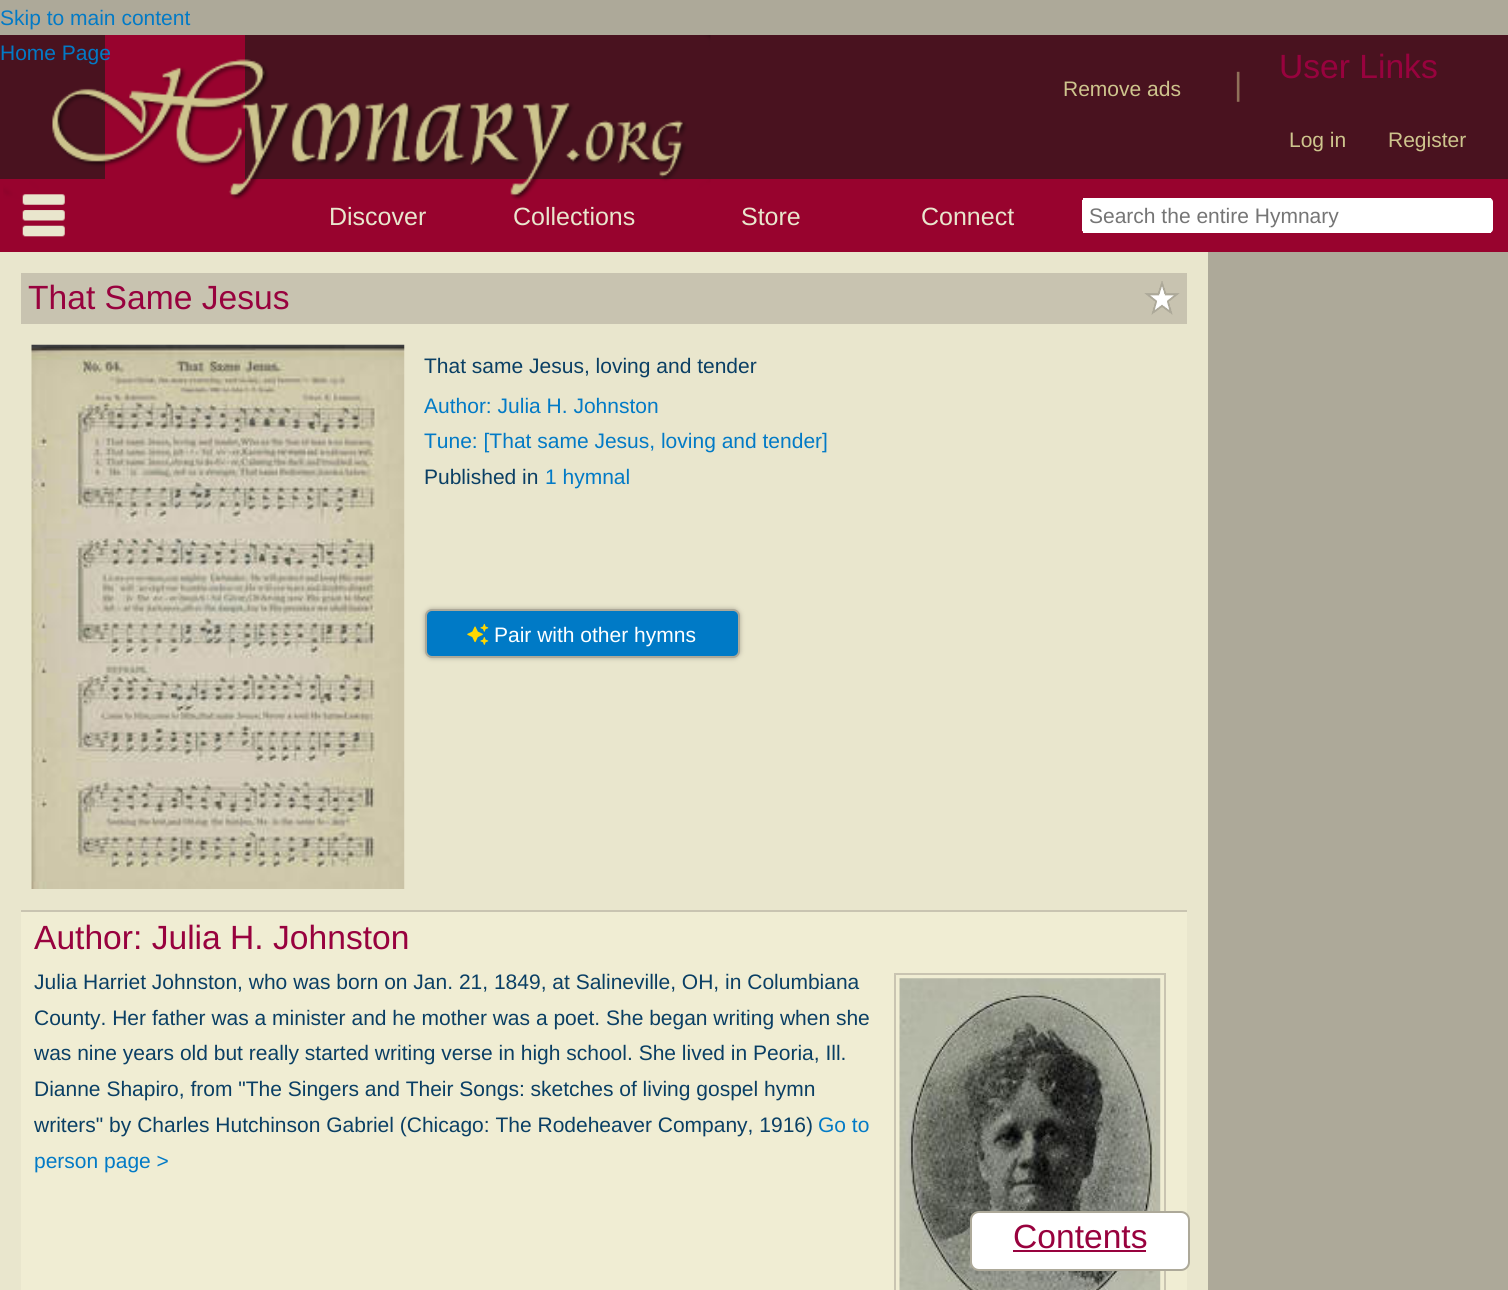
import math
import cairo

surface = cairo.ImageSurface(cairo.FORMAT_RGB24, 1508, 1290)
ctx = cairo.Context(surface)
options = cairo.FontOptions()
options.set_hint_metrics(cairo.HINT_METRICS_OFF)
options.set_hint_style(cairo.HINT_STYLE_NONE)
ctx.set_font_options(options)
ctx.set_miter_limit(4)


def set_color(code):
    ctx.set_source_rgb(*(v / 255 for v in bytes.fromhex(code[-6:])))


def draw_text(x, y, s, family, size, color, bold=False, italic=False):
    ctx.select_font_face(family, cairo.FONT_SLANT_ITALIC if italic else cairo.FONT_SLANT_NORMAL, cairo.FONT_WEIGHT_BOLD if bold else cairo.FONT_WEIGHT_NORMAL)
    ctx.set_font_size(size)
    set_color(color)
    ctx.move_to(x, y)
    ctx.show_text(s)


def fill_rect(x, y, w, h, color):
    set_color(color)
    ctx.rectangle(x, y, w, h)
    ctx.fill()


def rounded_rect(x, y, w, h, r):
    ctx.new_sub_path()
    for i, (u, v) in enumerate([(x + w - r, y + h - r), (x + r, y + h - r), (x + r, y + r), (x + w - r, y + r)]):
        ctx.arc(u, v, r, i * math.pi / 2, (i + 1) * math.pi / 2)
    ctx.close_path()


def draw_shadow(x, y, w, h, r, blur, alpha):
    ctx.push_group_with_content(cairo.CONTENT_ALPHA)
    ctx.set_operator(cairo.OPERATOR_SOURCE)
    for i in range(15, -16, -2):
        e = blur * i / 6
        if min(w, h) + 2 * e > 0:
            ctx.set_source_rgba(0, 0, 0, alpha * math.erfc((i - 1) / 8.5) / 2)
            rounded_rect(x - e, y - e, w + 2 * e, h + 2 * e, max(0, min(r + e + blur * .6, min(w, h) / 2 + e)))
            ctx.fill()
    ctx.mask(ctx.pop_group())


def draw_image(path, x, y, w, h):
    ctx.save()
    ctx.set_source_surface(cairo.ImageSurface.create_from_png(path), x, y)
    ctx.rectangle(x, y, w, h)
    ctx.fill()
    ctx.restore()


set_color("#ada999")
ctx.paint()
draw_text(0, 25, "Skip to main content", "Liberation Sans", 21, "#027ac6")
fill_rect(0, 35, 1508, 144, "#49121f")
fill_rect(105, 35, 140, 144, "#98032e")
fill_rect(0, 179, 1508, 73, "#98032e")
draw_image("assets/img1.png", 3, 35, 708, 165)
draw_text(0, 60, "Home Page", "Liberation Sans", 21, "#027ac6")
draw_text(1063, 96, "Remove ads", "Liberation Sans", 21, "#cec48d")
draw_text(1234, 95, "|", "Liberation Sans", 32, "#907159")
draw_text(1279, 78, "User Links", "Liberation Sans", 33.6, "#98023e")
draw_text(1289, 147, "Log in", "Liberation Sans", 21, "#cec48d")
draw_text(1388, 147, "Register", "Liberation Sans", 21, "#cec48d")
draw_image("assets/img2.png", 22, 194, 43, 43)
draw_text(329, 225, "Discover", "Liberation Sans", 25, "#e9e6cd")
draw_text(513, 225, "Collections", "Liberation Sans", 25, "#e9e6cd")
draw_text(741, 225, "Store", "Liberation Sans", 25, "#e9e6cd")
draw_text(921, 225, "Connect", "Liberation Sans", 25, "#e9e6cd")
set_color("#ffffff")
rounded_rect(1082, 198, 411, 35, 4)
ctx.fill()
fill_rect(1083, 198, 408, 2, "#ffffff")
fill_rect(1083, 231, 408, 2, "#ffffff")
fill_rect(1082, 200, 1, 31, "#ffffff")
draw_text(1089, 223, "Search the entire Hymnary", "Liberation Sans", 21, "#757575")
fill_rect(0, 252, 1208, 1038, "#e9e6cd")
fill_rect(21, 273, 1166, 51, "#c8c3b0")
draw_text(28, 309, "That Same Jesus", "Liberation Sans", 33.6, "#98023e")
draw_image("assets/img3.png", 1144, 281, 36, 34)
draw_image("assets/img4.png", 31, 344, 374, 545)
draw_text(424, 373, "That same Jesus, loving and tender", "Liberation Sans", 21, "#0a3f64")
draw_text(424, 413, "Author: Julia H. Johnston", "Liberation Sans", 21, "#027ac6")
draw_text(424, 448, "Tune: [That same Jesus, loving and tender]", "Liberation Sans", 21, "#027ac6")
draw_text(424, 484, "Published in", "Liberation Sans", 21, "#0a3f64")
draw_text(545, 484, "1 hymnal", "Liberation Sans", 21, "#027ac6")
set_color("#ada999")
draw_shadow(425, 609, 315, 49, 7, 2.5, 1)
set_color("#007ac6")
rounded_rect(426, 610, 313, 47, 6)
ctx.fill_preserve()
set_color("#ada999")
ctx.stroke()
draw_image("assets/img5.png", 467, 623, 22, 22)
draw_text(494, 642, "Pair with other hymns", "Liberation Sans", 21, "#ffffff")
fill_rect(21, 912, 1166, 378, "#f0edd3")
fill_rect(21, 910, 1166, 2, "#c9c4b1")
draw_text(34, 949, "Author: Julia H. Johnston", "Liberation Sans", 33.6, "#98023e")
draw_text(34, 989, "Julia Harriet Johnston, who was born on Jan. 21, 1849, at Salineville, OH, in Columbiana", "Liberation Sans", 21, "#0a3f64")
ctx.rectangle(895, 974, 270, 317)
set_color("#c9c4b1")
ctx.stroke()
draw_image("assets/img6.png", 899, 978, 262, 312)
draw_text(34, 1025, "County. Her father was a minister and he mother was a poet. She began writing when she", "Liberation Sans", 21, "#0a3f64")
draw_text(34, 1060, "was nine years old but really started writing verse in high school. She lived in Peoria, Ill.", "Liberation Sans", 21, "#0a3f64")
draw_text(34, 1096, "Dianne Shapiro, from \"The Singers and Their Songs: sketches of living gospel hymn", "Liberation Sans", 21, "#0a3f64")
draw_text(34, 1132, "writers\" by Charles Hutchinson Gabriel (Chicago: The Rodeheaver Company, 1916)", "Liberation Sans", 21, "#0a3f64")
draw_text(818, 1132, "Go to", "Liberation Sans", 21, "#027ac6")
draw_text(34, 1168, "person page >", "Liberation Sans", 21, "#027ac6")
set_color("#ffffff")
rounded_rect(971, 1212, 218, 58, 8)
ctx.fill_preserve()
set_color("#ada999")
ctx.stroke()
draw_text(1013, 1248, "Contents", "Liberation Sans", 33.6, "#98023e")
fill_rect(1013, 1250, 133, 2, "#98023e")
surface.write_to_png("output.png")
